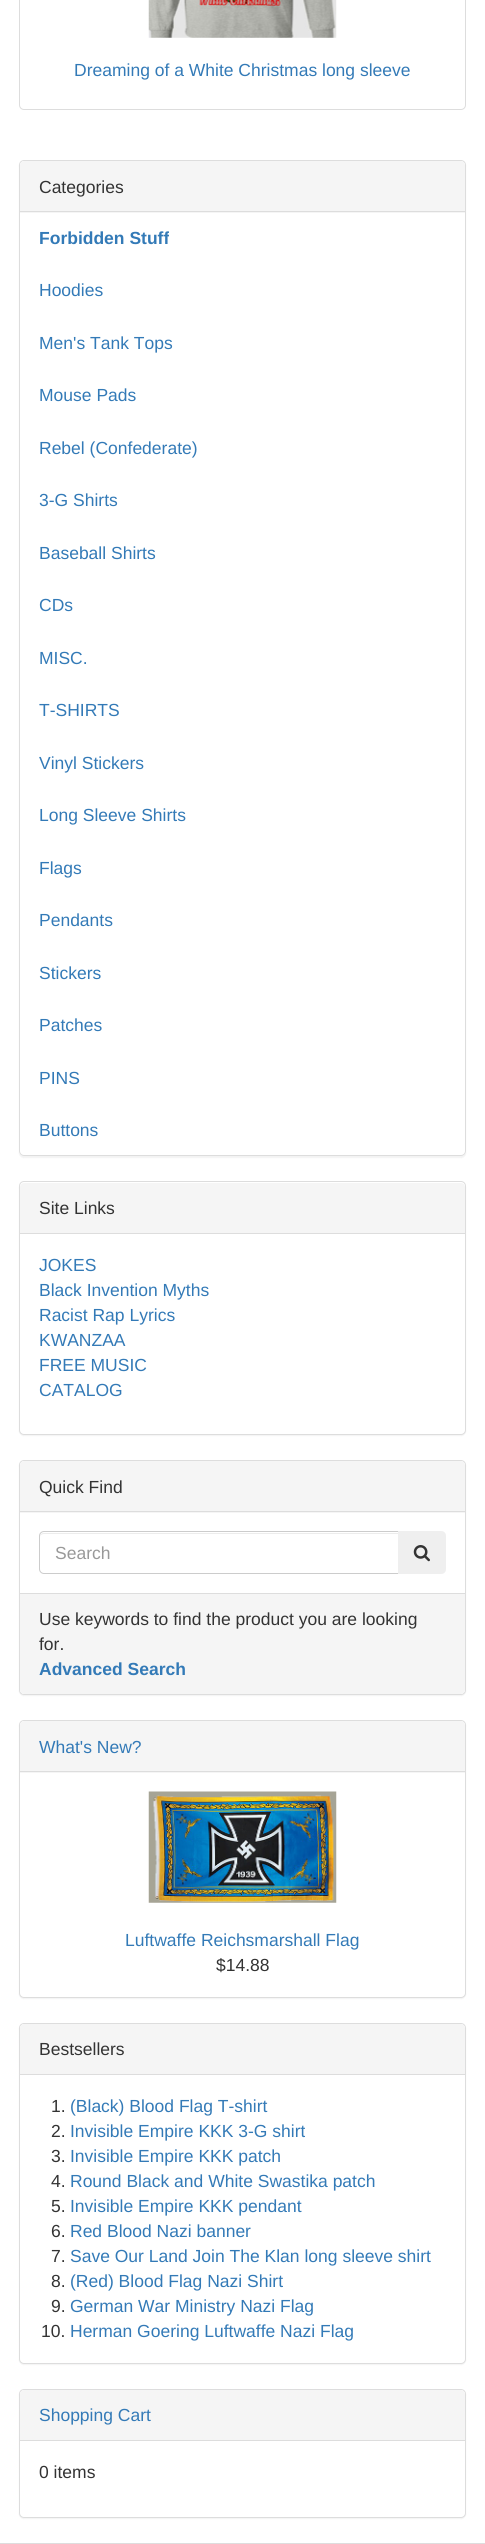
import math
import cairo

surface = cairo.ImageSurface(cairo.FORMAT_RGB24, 485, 2544)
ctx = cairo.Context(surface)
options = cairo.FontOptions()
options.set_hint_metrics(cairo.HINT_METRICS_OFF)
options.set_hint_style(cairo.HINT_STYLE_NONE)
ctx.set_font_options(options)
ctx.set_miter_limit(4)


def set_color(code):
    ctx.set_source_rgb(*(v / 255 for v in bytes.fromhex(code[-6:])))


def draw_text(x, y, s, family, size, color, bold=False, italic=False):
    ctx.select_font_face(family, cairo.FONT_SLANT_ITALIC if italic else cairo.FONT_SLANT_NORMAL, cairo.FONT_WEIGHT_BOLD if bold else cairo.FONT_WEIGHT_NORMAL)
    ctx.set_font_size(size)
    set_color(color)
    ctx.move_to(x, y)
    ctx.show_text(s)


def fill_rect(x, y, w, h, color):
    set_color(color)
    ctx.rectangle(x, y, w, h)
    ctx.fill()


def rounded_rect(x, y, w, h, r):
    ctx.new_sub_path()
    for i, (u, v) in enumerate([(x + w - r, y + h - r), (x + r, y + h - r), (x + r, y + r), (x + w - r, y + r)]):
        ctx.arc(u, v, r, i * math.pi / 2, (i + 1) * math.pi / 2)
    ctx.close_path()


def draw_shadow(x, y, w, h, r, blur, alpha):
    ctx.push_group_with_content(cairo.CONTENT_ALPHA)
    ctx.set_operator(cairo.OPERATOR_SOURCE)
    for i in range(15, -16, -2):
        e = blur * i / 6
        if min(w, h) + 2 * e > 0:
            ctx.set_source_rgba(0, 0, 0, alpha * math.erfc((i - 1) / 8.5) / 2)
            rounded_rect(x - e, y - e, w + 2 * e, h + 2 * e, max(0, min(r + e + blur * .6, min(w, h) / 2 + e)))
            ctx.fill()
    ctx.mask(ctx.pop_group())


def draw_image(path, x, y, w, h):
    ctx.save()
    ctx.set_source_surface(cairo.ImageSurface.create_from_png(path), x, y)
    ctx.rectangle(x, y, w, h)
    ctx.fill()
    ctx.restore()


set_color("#ffffff")
ctx.paint()
rounded_rect(19.5, -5.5, 446, 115, 4.5)
set_color("#dddddd")
ctx.set_line_width(1)
ctx.stroke()
draw_image("assets/img1.png", 148, 0, 189, 38)
draw_text(74, 76, "Dreaming of a White Christmas long sleeve", "Liberation Sans", 17.5, "#337ab7")
ctx.save()
ctx.set_fill_rule(cairo.FILL_RULE_EVEN_ODD)
ctx.new_path()
ctx.move_to(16, 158)
ctx.line_to(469, 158)
ctx.line_to(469, 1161)
ctx.line_to(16, 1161)
ctx.close_path()
ctx.move_to(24, 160)
ctx.line_to(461, 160)
ctx.curve_to(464, 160, 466, 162, 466, 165)
ctx.line_to(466, 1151)
ctx.curve_to(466, 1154, 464, 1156, 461, 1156)
ctx.line_to(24, 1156)
ctx.curve_to(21, 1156, 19, 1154, 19, 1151)
ctx.line_to(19, 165)
ctx.curve_to(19, 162, 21, 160, 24, 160)
ctx.close_path()
ctx.clip()
set_color("#000000")
draw_shadow(19, 161, 447, 997, 5, 0.5, 0.05)
ctx.restore()
rounded_rect(19.5, 160.5, 446, 995, 4.5)
set_color("#dddddd")
ctx.stroke()
set_color("#f5f5f5")
ctx.new_path()
ctx.move_to(24, 161)
ctx.line_to(461, 161)
ctx.curve_to(463, 161, 465, 163, 465, 165)
ctx.line_to(465, 213)
ctx.line_to(20, 213)
ctx.line_to(20, 165)
ctx.curve_to(20, 163, 22, 161, 24, 161)
ctx.close_path()
ctx.fill()
fill_rect(20, 211, 445, 1, "#dddddd")
draw_text(39, 193, "Categories", "Liberation Sans", 17.5, "#333333")
draw_text(39, 244, "Forbidden Stuff", "Liberation Sans", 17.5, "#337ab7", bold=True)
draw_text(39, 296, "Hoodies", "Liberation Sans", 17.5, "#337ab7")
draw_text(39, 349, "Men's Tank Tops", "Liberation Sans", 17.5, "#337ab7")
draw_text(39, 401, "Mouse Pads", "Liberation Sans", 17.5, "#337ab7")
draw_text(39, 454, "Rebel (Confederate)", "Liberation Sans", 17.5, "#337ab7")
draw_text(39, 506, "3-G Shirts", "Liberation Sans", 17.5, "#337ab7")
draw_text(39, 559, "Baseball Shirts", "Liberation Sans", 17.5, "#337ab7")
draw_text(39, 611, "CDs", "Liberation Sans", 17.5, "#337ab7")
draw_text(39, 664, "MISC.", "Liberation Sans", 17.5, "#337ab7")
draw_text(39, 716, "T-SHIRTS", "Liberation Sans", 17.5, "#337ab7")
draw_text(39, 769, "Vinyl Stickers", "Liberation Sans", 17.5, "#337ab7")
draw_text(39, 821, "Long Sleeve Shirts", "Liberation Sans", 17.5, "#337ab7")
draw_text(39, 874, "Flags", "Liberation Sans", 17.5, "#337ab7")
draw_text(39, 926, "Pendants", "Liberation Sans", 17.5, "#337ab7")
draw_text(39, 979, "Stickers", "Liberation Sans", 17.5, "#337ab7")
draw_text(39, 1031, "Patches", "Liberation Sans", 17.5, "#337ab7")
draw_text(39, 1084, "PINS", "Liberation Sans", 17.5, "#337ab7")
draw_text(39, 1136, "Buttons", "Liberation Sans", 17.5, "#337ab7")
set_color("#000000")
draw_shadow(19, 1183, 447, 253, 5, 0.5, 0.05)
set_color("#ffffff")
rounded_rect(19.5, 1181.5, 446, 253, 4.5)
ctx.fill_preserve()
set_color("#dddddd")
ctx.stroke()
set_color("#f5f5f5")
ctx.new_path()
ctx.move_to(24, 1183)
ctx.line_to(461, 1183)
ctx.curve_to(463, 1183, 465, 1185, 465, 1187)
ctx.line_to(465, 1234)
ctx.line_to(20, 1234)
ctx.line_to(20, 1187)
ctx.curve_to(20, 1185, 22, 1183, 24, 1183)
ctx.close_path()
ctx.fill()
fill_rect(20, 1233, 445, 1, "#dddddd")
draw_text(39, 1214, "Site Links", "Liberation Sans", 17.5, "#333333")
draw_text(39, 1271, "JOKES", "Liberation Sans", 17.5, "#337ab7")
draw_text(39, 1296, "Black Invention Myths", "Liberation Sans", 17.5, "#337ab7")
draw_text(39, 1321, "Racist Rap Lyrics", "Liberation Sans", 17.5, "#337ab7")
draw_text(39, 1346, "KWANZAA", "Liberation Sans", 17.5, "#337ab7")
draw_text(39, 1371, "FREE MUSIC", "Liberation Sans", 17.5, "#337ab7")
draw_text(39, 1396, "CATALOG", "Liberation Sans", 17.5, "#337ab7")
set_color("#000000")
draw_shadow(19, 1461, 447, 235, 5, 0.5, 0.05)
set_color("#ffffff")
rounded_rect(19.5, 1460.5, 446, 234, 4.5)
ctx.fill_preserve()
set_color("#dddddd")
ctx.stroke()
set_color("#f5f5f5")
ctx.new_path()
ctx.move_to(24, 1461)
ctx.line_to(461, 1461)
ctx.curve_to(463, 1461, 465, 1463, 465, 1465)
ctx.line_to(465, 1513)
ctx.line_to(20, 1513)
ctx.line_to(20, 1465)
ctx.curve_to(20, 1463, 22, 1461, 24, 1461)
ctx.close_path()
ctx.fill()
fill_rect(20, 1511, 445, 1, "#dddddd")
draw_text(39, 1493, "Quick Find", "Liberation Sans", 17.5, "#333333")
set_color("#ececec")
ctx.new_path()
ctx.move_to(44, 1534)
ctx.line_to(398, 1534)
ctx.line_to(398, 1533)
ctx.line_to(44, 1533)
ctx.curve_to(41, 1533, 40, 1535, 40, 1538)
ctx.curve_to(40, 1535, 42, 1534, 44, 1534)
ctx.close_path()
ctx.fill()
ctx.new_path()
ctx.move_to(44, 1531.5)
ctx.line_to(398.5, 1531.5)
ctx.line_to(398.5, 1573.5)
ctx.line_to(44, 1573.5)
ctx.curve_to(41.5, 1573.5, 39.5, 1571.5, 39.5, 1569)
ctx.line_to(39.5, 1536)
ctx.curve_to(39.5, 1533.5, 41.5, 1531.5, 44, 1531.5)
ctx.close_path()
set_color("#cccccc")
ctx.stroke()
draw_text(55, 1559, "Search", "Liberation Sans", 17.5, "#999999")
set_color("#efefef")
ctx.new_path()
ctx.move_to(398, 1531)
ctx.line_to(441, 1531)
ctx.curve_to(444, 1531, 446, 1533, 446, 1536)
ctx.line_to(446, 1569)
ctx.curve_to(446, 1572, 444, 1574, 441, 1574)
ctx.line_to(398, 1574)
ctx.close_path()
ctx.fill()
draw_image("assets/img2.png", 413, 1545, 17, 17)
set_color("#f5f5f5")
ctx.new_path()
ctx.move_to(20, 1593)
ctx.line_to(465, 1593)
ctx.line_to(465, 1690)
ctx.curve_to(465, 1692, 463, 1694, 461, 1694)
ctx.line_to(24, 1694)
ctx.curve_to(22, 1694, 20, 1692, 20, 1690)
ctx.close_path()
ctx.fill()
fill_rect(20, 1593, 445, 1, "#dddddd")
draw_text(39, 1625, "Use keywords to find the product you are looking", "Liberation Sans", 17.5, "#333333")
draw_text(39, 1650, "for.", "Liberation Sans", 17.5, "#333333")
draw_text(39, 1675, "Advanced Search", "Liberation Sans", 17.5, "#337ab7", bold=True)
set_color("#000000")
draw_shadow(19, 1721, 447, 278, 5, 0.5, 0.05)
set_color("#ffffff")
rounded_rect(19.5, 1720.5, 446, 277, 4.5)
ctx.fill_preserve()
set_color("#dddddd")
ctx.stroke()
set_color("#f5f5f5")
ctx.new_path()
ctx.move_to(24, 1721)
ctx.line_to(461, 1721)
ctx.curve_to(463, 1721, 465, 1723, 465, 1725)
ctx.line_to(465, 1773)
ctx.line_to(20, 1773)
ctx.line_to(20, 1725)
ctx.curve_to(20, 1723, 22, 1721, 24, 1721)
ctx.close_path()
ctx.fill()
fill_rect(20, 1771, 445, 1, "#dddddd")
draw_text(39, 1753, "What's New?", "Liberation Sans", 17.5, "#337ab7")
draw_image("assets/img3.png", 148, 1791, 189, 112)
draw_text(125, 1946, "Luftwaffe Reichsmarshall Flag", "Liberation Sans", 17.5, "#337ab7")
draw_text(216, 1971, "$14.88", "Liberation Sans", 17.5, "#333333")
set_color("#000000")
draw_shadow(19, 2024, 447, 341, 5, 0.5, 0.05)
set_color("#ffffff")
rounded_rect(19.5, 2023.5, 446, 340, 4.5)
ctx.fill_preserve()
set_color("#dddddd")
ctx.stroke()
set_color("#f5f5f5")
ctx.new_path()
ctx.move_to(24, 2024)
ctx.line_to(461, 2024)
ctx.curve_to(463, 2024, 465, 2026, 465, 2028)
ctx.line_to(465, 2075)
ctx.line_to(20, 2075)
ctx.line_to(20, 2028)
ctx.curve_to(20, 2026, 22, 2024, 24, 2024)
ctx.close_path()
ctx.fill()
fill_rect(20, 2074, 445, 1, "#dddddd")
draw_text(39, 2055, "Bestsellers", "Liberation Sans", 17.5, "#333333")
draw_text(51, 2112, "1.", "Liberation Sans", 17.5, "#333333")
draw_text(70, 2112, "(Black) Blood Flag T-shirt", "Liberation Sans", 17.5, "#337ab7")
draw_text(51, 2137, "2.", "Liberation Sans", 17.5, "#333333")
draw_text(70, 2137, "Invisible Empire KKK 3-G shirt", "Liberation Sans", 17.5, "#337ab7")
draw_text(51, 2162, "3.", "Liberation Sans", 17.5, "#333333")
draw_text(70, 2162, "Invisible Empire KKK patch", "Liberation Sans", 17.5, "#337ab7")
draw_text(51, 2187, "4.", "Liberation Sans", 17.5, "#333333")
draw_text(70, 2187, "Round Black and White Swastika patch", "Liberation Sans", 17.5, "#337ab7")
draw_text(51, 2212, "5.", "Liberation Sans", 17.5, "#333333")
draw_text(70, 2212, "Invisible Empire KKK pendant", "Liberation Sans", 17.5, "#337ab7")
draw_text(51, 2237, "6.", "Liberation Sans", 17.5, "#333333")
draw_text(70, 2237, "Red Blood Nazi banner", "Liberation Sans", 17.5, "#337ab7")
draw_text(51, 2262, "7.", "Liberation Sans", 17.5, "#333333")
draw_text(70, 2262, "Save Our Land Join The Klan long sleeve shirt", "Liberation Sans", 17.5, "#337ab7")
draw_text(51, 2287, "8.", "Liberation Sans", 17.5, "#333333")
draw_text(70, 2287, "(Red) Blood Flag Nazi Shirt", "Liberation Sans", 17.5, "#337ab7")
draw_text(51, 2312, "9.", "Liberation Sans", 17.5, "#333333")
draw_text(70, 2312, "German War Ministry Nazi Flag", "Liberation Sans", 17.5, "#337ab7")
draw_text(41, 2337, "10.", "Liberation Sans", 17.5, "#333333")
draw_text(70, 2337, "Herman Goering Luftwaffe Nazi Flag", "Liberation Sans", 17.5, "#337ab7")
set_color("#000000")
draw_shadow(19, 2390, 447, 129, 5, 0.5, 0.05)
set_color("#ffffff")
rounded_rect(19.5, 2389.5, 446, 128, 4.5)
ctx.fill_preserve()
set_color("#dddddd")
ctx.stroke()
set_color("#f5f5f5")
ctx.new_path()
ctx.move_to(24, 2390)
ctx.line_to(461, 2390)
ctx.curve_to(463, 2390, 465, 2392, 465, 2394)
ctx.line_to(465, 2441)
ctx.line_to(20, 2441)
ctx.line_to(20, 2394)
ctx.curve_to(20, 2392, 22, 2390, 24, 2390)
ctx.close_path()
ctx.fill()
fill_rect(20, 2440, 445, 1, "#dddddd")
draw_text(39, 2421, "Shopping Cart", "Liberation Sans", 17.5, "#337ab7")
draw_text(39, 2478, "0 items", "Liberation Sans", 17.5, "#333333")
fill_rect(0, 2543, 485, 1, "#dddddd")
surface.write_to_png("output.png")
